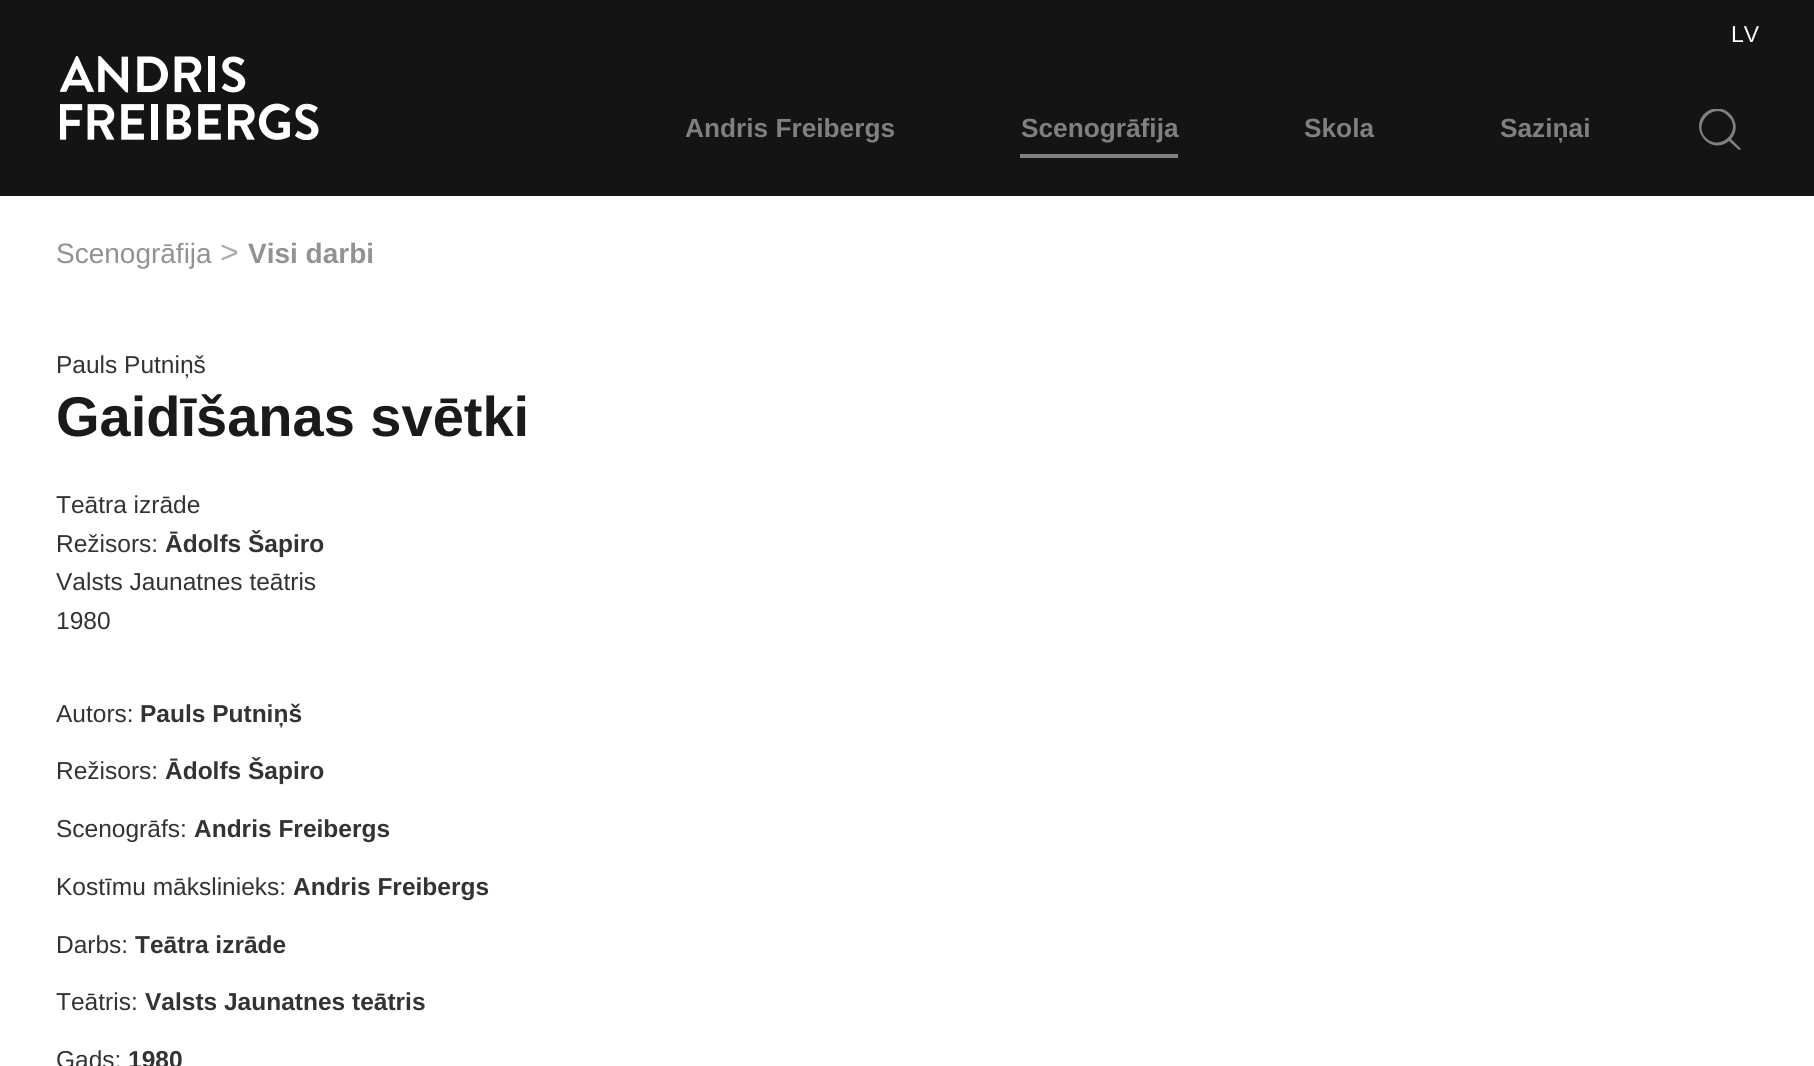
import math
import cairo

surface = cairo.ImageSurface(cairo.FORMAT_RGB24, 1814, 1066)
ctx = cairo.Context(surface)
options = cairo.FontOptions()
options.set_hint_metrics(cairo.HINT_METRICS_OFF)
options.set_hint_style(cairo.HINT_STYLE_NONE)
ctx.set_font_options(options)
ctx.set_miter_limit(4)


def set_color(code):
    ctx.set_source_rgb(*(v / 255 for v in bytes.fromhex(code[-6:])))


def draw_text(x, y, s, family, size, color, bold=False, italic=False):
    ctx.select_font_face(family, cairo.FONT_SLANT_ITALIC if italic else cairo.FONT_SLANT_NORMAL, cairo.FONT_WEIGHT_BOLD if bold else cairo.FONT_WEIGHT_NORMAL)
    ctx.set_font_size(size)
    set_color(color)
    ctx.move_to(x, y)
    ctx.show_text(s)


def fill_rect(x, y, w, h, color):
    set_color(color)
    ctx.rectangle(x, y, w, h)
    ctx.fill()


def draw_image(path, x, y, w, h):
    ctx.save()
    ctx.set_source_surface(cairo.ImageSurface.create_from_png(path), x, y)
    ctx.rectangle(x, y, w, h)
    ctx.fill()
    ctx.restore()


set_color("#ffffff")
ctx.paint()
fill_rect(0, 0, 1814, 196, "#141414")
draw_image("assets/img1.png", 60, 56, 259, 84)
draw_text(1731, 42, "LV", "Liberation Sans", 23, "#ffffff")
draw_text(685, 137, "Andris Freibergs", "Liberation Sans", 26.25, "#808080", bold=True)
draw_text(1021, 137, "Scenogrāfija", "Liberation Sans", 26.25, "#808080", bold=True)
fill_rect(1020, 154, 158, 4, "#808080")
draw_text(1304, 137, "Skola", "Liberation Sans", 26.25, "#808080", bold=True)
draw_text(1500, 137, "Saziņai", "Liberation Sans", 26.25, "#808080", bold=True)
ctx.save()
ctx.rectangle(1699, 109, 42, 42)
ctx.clip()
set_color("#818181")
ctx.new_path()
ctx.move_to(1704, 114)
ctx.curve_to(1689, 130, 1711, 156, 1729, 141)
ctx.line_to(1739, 150)
ctx.line_to(1741, 149)
ctx.line_to(1731, 139)
ctx.curve_to(1746, 122, 1722, 97, 1704, 114)
ctx.close_path()
ctx.move_to(1728, 116)
ctx.curve_to(1743, 130, 1721, 152, 1706, 138)
ctx.curve_to(1692, 124, 1714, 101, 1728, 116)
ctx.close_path()
ctx.fill()
ctx.restore()
draw_text(56, 263, "Scenogrāfija", "Liberation Sans", 28, "#929292")
draw_text(220, 263, ">", "Liberation Sans", 32, "#acacac")
draw_text(248, 263, "Visi darbi", "Liberation Sans", 28, "#929292", bold=True)
draw_text(56, 373, "Pauls Putniņš", "Liberation Sans", 24.5, "#333333")
draw_text(56, 436, "Gaidīšanas svētki", "Liberation Sans", 56, "#1a1a1a", bold=True)
draw_text(56, 513, "Teātra izrāde", "Liberation Sans", 24.5, "#333333")
draw_text(56, 552, "Režisors:", "Liberation Sans", 24.5, "#333333")
draw_text(165, 552, "Ādolfs Šapiro", "Liberation Sans", 24.5, "#333333", bold=True)
draw_text(56, 590, "Valsts Jaunatnes teātris", "Liberation Sans", 24.5, "#333333")
draw_text(56, 629, "1980", "Liberation Sans", 24.5, "#333333")
draw_text(56, 722, "Autors:", "Liberation Sans", 24.5, "#333333")
draw_text(140, 722, "Pauls Putniņš", "Liberation Sans", 24.5, "#333333", bold=True)
draw_text(56, 779, "Režisors:", "Liberation Sans", 24.5, "#333333")
draw_text(165, 779, "Ādolfs Šapiro", "Liberation Sans", 24.5, "#333333", bold=True)
draw_text(56, 837, "Scenogrāfs:", "Liberation Sans", 24.5, "#333333")
draw_text(194, 837, "Andris Freibergs", "Liberation Sans", 24.5, "#333333", bold=True)
draw_text(56, 895, "Kostīmu mākslinieks:", "Liberation Sans", 24.5, "#333333")
draw_text(293, 895, "Andris Freibergs", "Liberation Sans", 24.5, "#333333", bold=True)
draw_text(56, 953, "Darbs:", "Liberation Sans", 24.5, "#333333")
draw_text(135, 953, "Teātra izrāde", "Liberation Sans", 24.5, "#333333", bold=True)
draw_text(56, 1010, "Teātris:", "Liberation Sans", 24.5, "#333333")
draw_text(145, 1010, "Valsts Jaunatnes teātris", "Liberation Sans", 24.5, "#333333", bold=True)
draw_text(56, 1068, "Gads:", "Liberation Sans", 24.5, "#333333")
draw_text(128, 1068, "1980", "Liberation Sans", 24.5, "#333333", bold=True)
surface.write_to_png("output.png")
